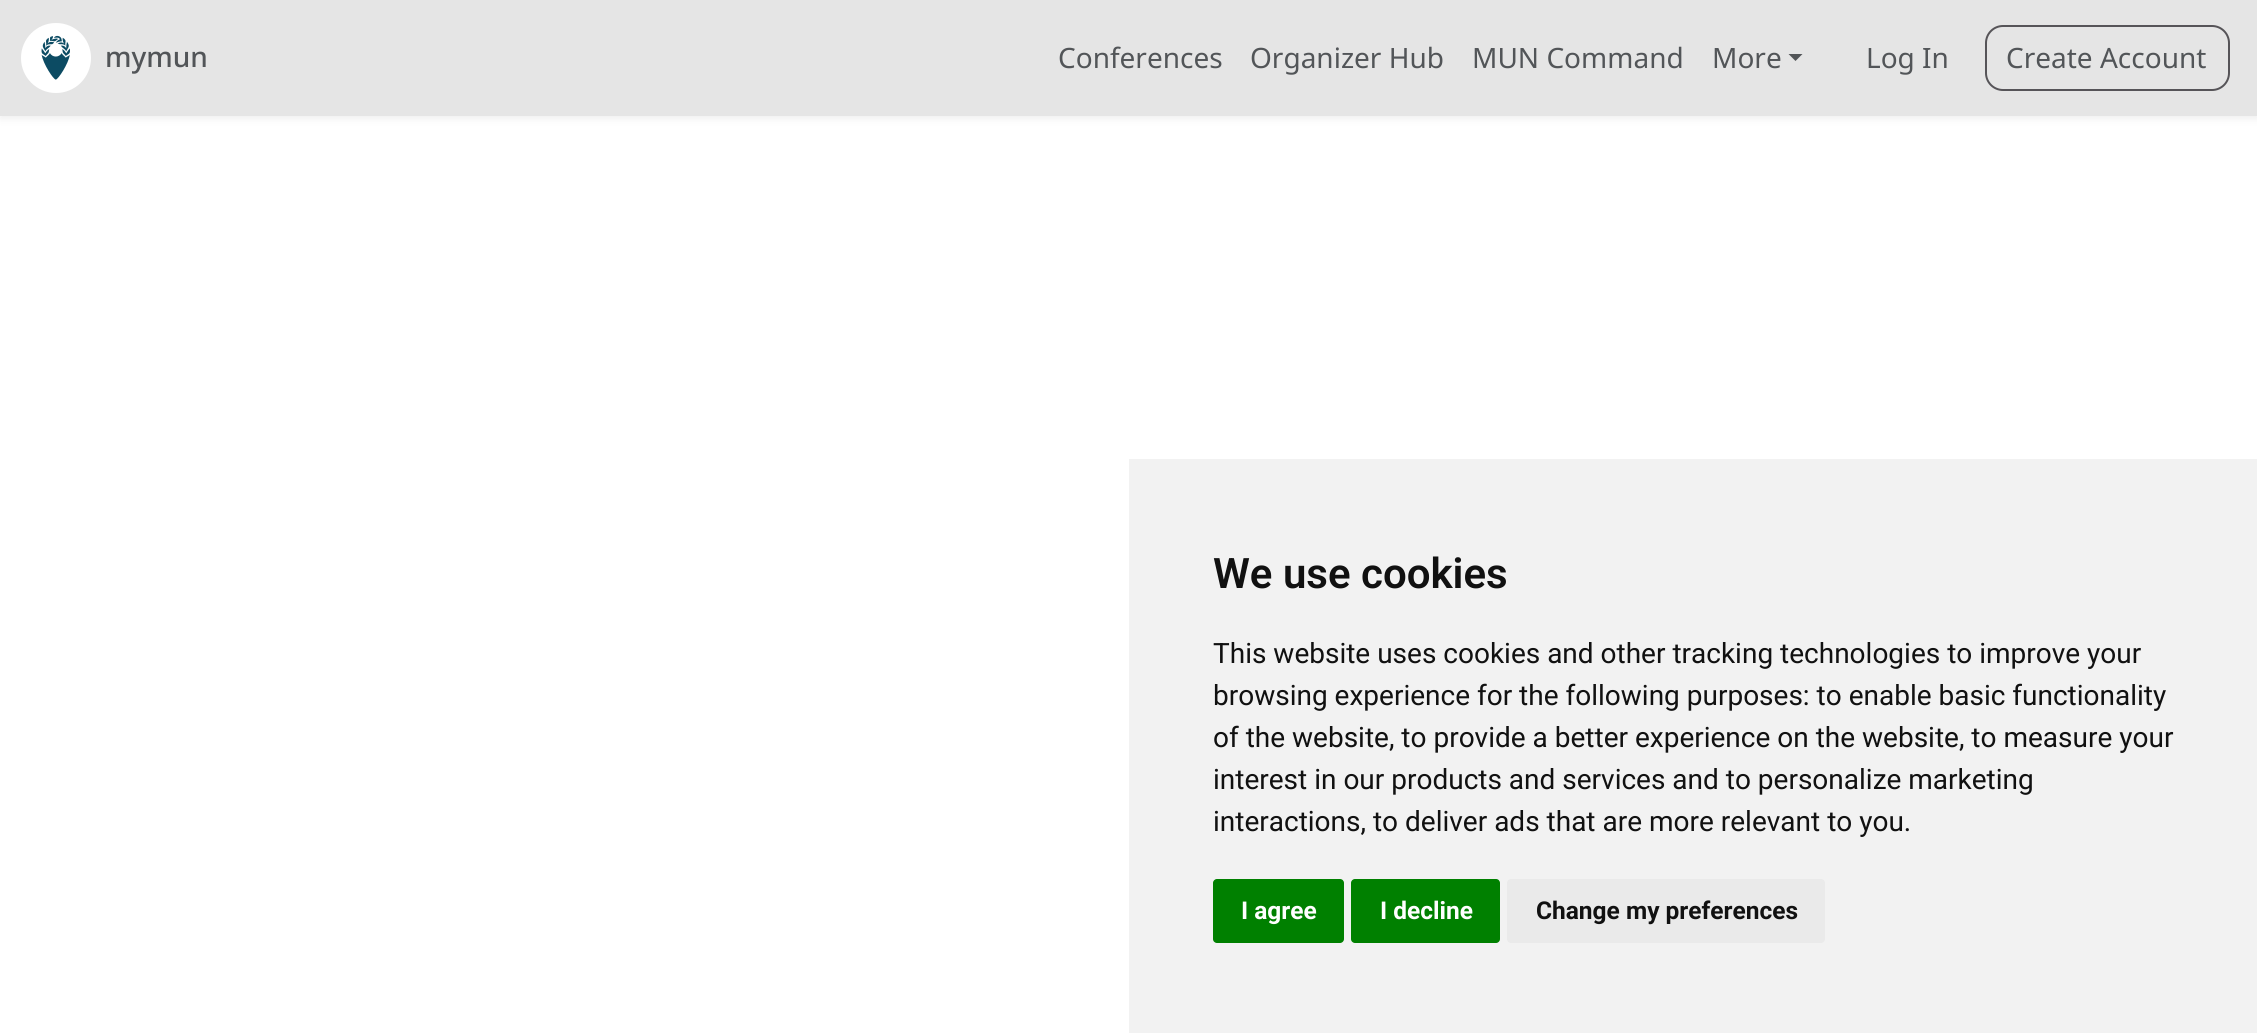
import math
import cairo

surface = cairo.ImageSurface(cairo.FORMAT_RGB24, 2257, 1033)
ctx = cairo.Context(surface)
options = cairo.FontOptions()
options.set_hint_metrics(cairo.HINT_METRICS_OFF)
options.set_hint_style(cairo.HINT_STYLE_NONE)
ctx.set_font_options(options)
ctx.set_miter_limit(4)


def set_color(code):
    ctx.set_source_rgb(*(v / 255 for v in bytes.fromhex(code[-6:])))


def draw_text(x, y, s, family, size, color, bold=False, italic=False):
    ctx.select_font_face(family, cairo.FONT_SLANT_ITALIC if italic else cairo.FONT_SLANT_NORMAL, cairo.FONT_WEIGHT_BOLD if bold else cairo.FONT_WEIGHT_NORMAL)
    ctx.set_font_size(size)
    set_color(color)
    ctx.move_to(x, y)
    ctx.show_text(s)


def fill_rect(x, y, w, h, color):
    set_color(color)
    ctx.rectangle(x, y, w, h)
    ctx.fill()


def rounded_rect(x, y, w, h, r):
    ctx.new_sub_path()
    for i, (u, v) in enumerate([(x + w - r, y + h - r), (x + r, y + h - r), (x + r, y + r), (x + w - r, y + r)]):
        ctx.arc(u, v, r, i * math.pi / 2, (i + 1) * math.pi / 2)
    ctx.close_path()


def draw_shadow(x, y, w, h, r, blur, alpha):
    ctx.push_group_with_content(cairo.CONTENT_ALPHA)
    ctx.set_operator(cairo.OPERATOR_SOURCE)
    for i in range(15, -16, -2):
        e = blur * i / 6
        if min(w, h) + 2 * e > 0:
            ctx.set_source_rgba(0, 0, 0, alpha * math.erfc((i - 1) / 8.5) / 2)
            rounded_rect(x - e, y - e, w + 2 * e, h + 2 * e, max(0, min(r + e + blur * .6, min(w, h) / 2 + e)))
            ctx.fill()
    ctx.mask(ctx.pop_group())


def draw_image(path, x, y, w, h):
    ctx.save()
    ctx.set_source_surface(cairo.ImageSurface.create_from_png(path), x, y)
    ctx.rectangle(x, y, w, h)
    ctx.fill()
    ctx.restore()


set_color("#ffffff")
ctx.paint()
set_color("#e5e5e5")
draw_shadow(0, 4, 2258, 115, 0, 3.5, 0.6)
fill_rect(0, 0, 2257, 116, "#e5e5e5")
draw_image("assets/img1.png", 21, 23, 70, 70)
draw_text(105, 67, "mymun", "Noto Sans Medium", 28, "#525558")
draw_text(1058, 68, "Conferences", "Noto Sans", 28, "#525558")
draw_text(1250, 68, "Organizer Hub", "Noto Sans", 28, "#525558")
draw_text(1472, 68, "MUN Command", "Noto Sans", 28, "#525558")
draw_text(1712, 68, "More", "Noto Sans", 28, "#525558")
ctx.new_path()
ctx.move_to(1788.5, 54)
ctx.line_to(1802.5, 54)
ctx.line_to(1795.5, 61)
ctx.close_path()
ctx.fill()
draw_text(1866, 68, "Log In", "Noto Sans", 28, "#525558")
rounded_rect(1986, 26, 243, 64, 17)
set_color("#565458")
ctx.stroke()
draw_text(2006, 68, "Create Account", "Noto Sans", 28, "#525558")
fill_rect(1129, 459, 1128, 574, "#f2f2f2")
draw_text(1213, 588, "We use cookies", "Roboto SemiBold", 42, "#111111")
draw_text(1213, 663, "This website uses cookies and other tracking technologies to improve your", "Roboto", 28, "#111111")
draw_text(1213, 705, "browsing experience for the following purposes: to enable basic functionality", "Roboto", 28, "#111111")
draw_text(1213, 747, "of the website, to provide a better experience on the website, to measure your", "Roboto", 28, "#111111")
draw_text(1213, 789, "interest in our products and services and to personalize marketing", "Roboto", 28, "#111111")
draw_text(1213, 831, "interactions, to deliver ads that are more relevant to you.", "Roboto", 28, "#111111")
set_color("#008000")
rounded_rect(1213, 879, 131, 64, 4)
ctx.fill()
draw_text(1241, 919, "I agree", "Roboto", 24.5, "#ffffff", bold=True)
set_color("#008000")
rounded_rect(1351, 879, 149, 64, 4)
ctx.fill()
draw_text(1380, 919, "I decline", "Roboto", 24.5, "#ffffff", bold=True)
set_color("#eaeaea")
rounded_rect(1507, 879, 318, 64, 4)
ctx.fill()
draw_text(1536, 919, "Change my preferences", "Roboto", 24.5, "#111111", bold=True)
surface.write_to_png("output.png")
